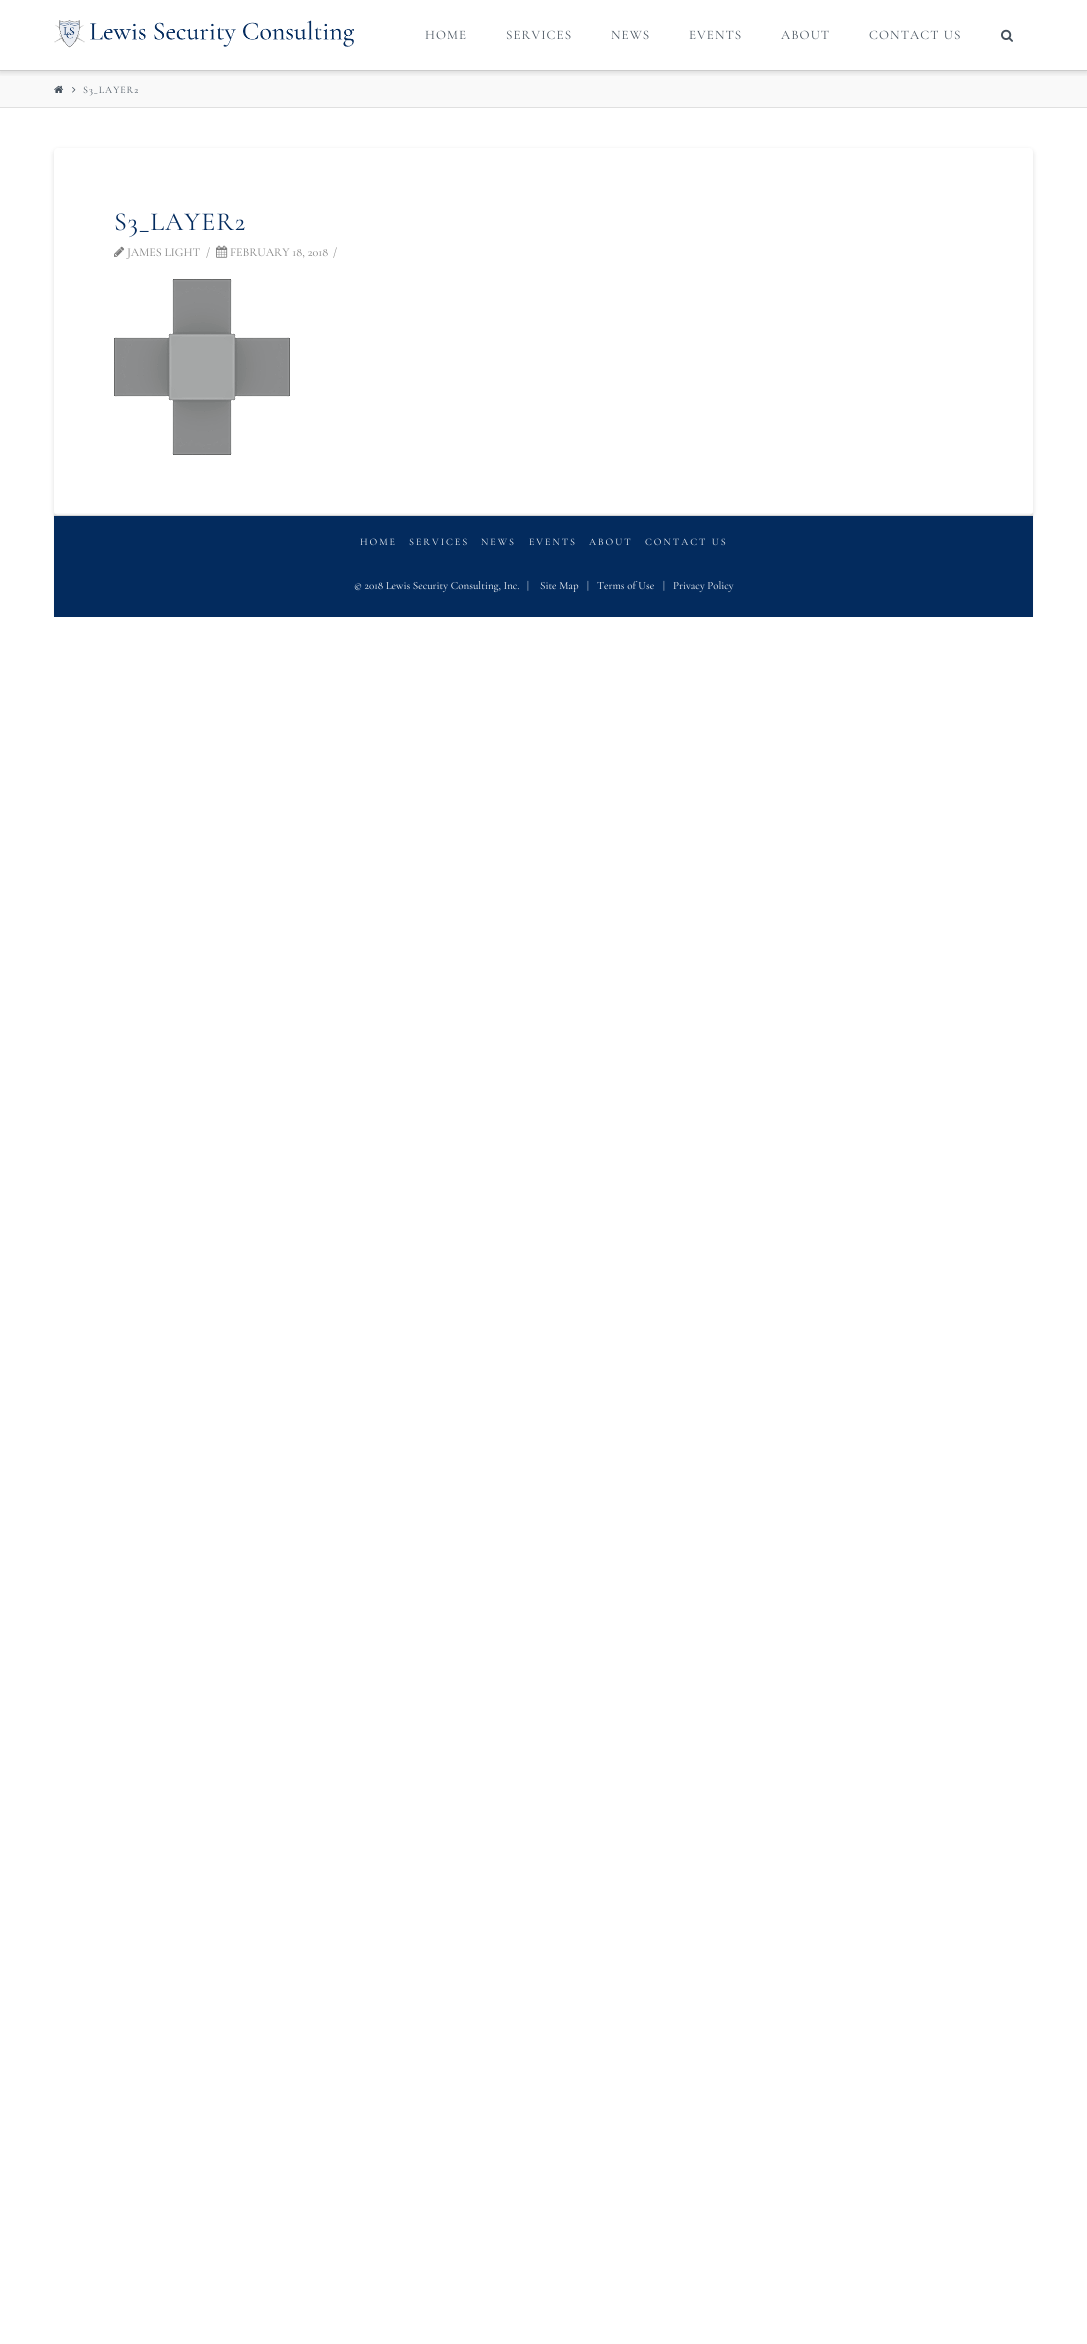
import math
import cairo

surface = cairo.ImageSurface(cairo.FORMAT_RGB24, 1087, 2344)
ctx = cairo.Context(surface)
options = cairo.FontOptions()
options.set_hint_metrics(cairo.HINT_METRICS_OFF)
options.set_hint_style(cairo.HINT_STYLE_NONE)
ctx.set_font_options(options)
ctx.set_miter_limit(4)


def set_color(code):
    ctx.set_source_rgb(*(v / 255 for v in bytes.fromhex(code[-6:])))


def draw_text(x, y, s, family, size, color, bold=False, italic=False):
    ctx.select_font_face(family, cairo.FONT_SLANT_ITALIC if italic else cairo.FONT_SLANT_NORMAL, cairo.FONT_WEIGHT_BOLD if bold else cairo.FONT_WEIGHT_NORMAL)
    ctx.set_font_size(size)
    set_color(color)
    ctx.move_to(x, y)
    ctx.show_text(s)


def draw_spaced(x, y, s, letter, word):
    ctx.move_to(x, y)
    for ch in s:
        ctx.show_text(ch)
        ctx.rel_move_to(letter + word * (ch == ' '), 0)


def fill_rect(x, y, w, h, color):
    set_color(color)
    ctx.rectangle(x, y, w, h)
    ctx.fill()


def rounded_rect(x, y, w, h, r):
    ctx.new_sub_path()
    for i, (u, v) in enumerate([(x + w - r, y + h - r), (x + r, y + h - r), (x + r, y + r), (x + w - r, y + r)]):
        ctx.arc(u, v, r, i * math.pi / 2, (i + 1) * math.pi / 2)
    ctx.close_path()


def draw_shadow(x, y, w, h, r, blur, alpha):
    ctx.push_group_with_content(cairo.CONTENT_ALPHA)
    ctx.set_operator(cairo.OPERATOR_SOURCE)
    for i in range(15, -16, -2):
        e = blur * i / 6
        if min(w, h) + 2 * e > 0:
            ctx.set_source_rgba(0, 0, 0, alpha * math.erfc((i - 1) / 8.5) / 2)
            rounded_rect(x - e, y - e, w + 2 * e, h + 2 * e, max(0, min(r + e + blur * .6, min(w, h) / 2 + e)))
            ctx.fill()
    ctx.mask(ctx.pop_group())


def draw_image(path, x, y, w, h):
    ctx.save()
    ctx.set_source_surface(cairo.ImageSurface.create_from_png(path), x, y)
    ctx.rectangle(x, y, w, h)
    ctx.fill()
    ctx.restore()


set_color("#ffffff")
ctx.paint()
fill_rect(0, 71, 1087, 36, "#f9f9f9")
ctx.save()
ctx.rectangle(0, 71, 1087, 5)
ctx.clip()
set_color("#000000")
draw_shadow(0, 2, 1087, 71, 0, 2.5, 0.13)
ctx.restore()
fill_rect(0, 70, 1087, 1, "#cccccc")
draw_image("assets/img1.png", 54, 20, 300, 28)
ctx.select_font_face("Cormorant Garamond")
ctx.set_font_size(13)
set_color("#434f5b")
draw_spaced(425, 39, "HOME", 1.1, 0)
draw_spaced(506, 39, "SERVICES", 1.1, 0)
draw_spaced(611, 39, "NEWS", 1.1, 0)
draw_spaced(689, 39, "EVENTS", 1.1, 0)
draw_spaced(781, 39, "ABOUT", 1.1, 0)
draw_spaced(869, 39, "CONTACT US", 1.1, 0)
draw_image("assets/img2.png", 1001, 29, 12, 13)
fill_rect(0, 107, 1087, 1, "#e0e0e0")
draw_image("assets/img3.png", 54, 85, 10, 8)
draw_image("assets/img4.png", 72, 87, 4, 6)
ctx.set_font_size(10)
set_color("#434f5b")
draw_spaced(83, 93, "S3_LAYER2", 1, 0)
set_color("#000000")
draw_shadow(54, 150, 979, 367, 4, 2.5, 0.13)
set_color("#ffffff")
rounded_rect(54, 148, 979, 367, 4)
ctx.fill()
ctx.set_font_size(26)
set_color("#032b5e")
draw_spaced(114, 230, "S3_LAYER2", 1, 0)
draw_image("assets/img5.png", 114, 246, 11, 11)
draw_text(127, 256, "JAMES LIGHT", "Cormorant Garamond", 12, "#7c7c7c")
draw_text(206, 256, "/", "Cormorant Garamond", 12, "#7c7c7c")
draw_image("assets/img6.png", 216, 245, 12, 13)
draw_text(230, 256, "FEBRUARY 18, 2018", "Cormorant Garamond", 12, "#7c7c7c")
draw_text(333, 256, "/", "Cormorant Garamond", 12, "#7c7c7c")
draw_image("assets/img7.png", 114, 279, 176, 176)
set_color("#000000")
draw_shadow(54, 514, 979, 102, 0, 1, 0.07)
fill_rect(54, 516, 979, 101, "#032b5e")
fill_rect(54, 515, 979, 1, "#d4d4d4")
ctx.set_font_size(10)
set_color("#ffffff")
draw_spaced(360, 545, "HOME", 2, 0)
draw_spaced(409, 545, "SERVICES", 2, 0)
draw_spaced(481, 545, "NEWS", 2, 0)
draw_spaced(529, 545, "EVENTS", 2, 0)
draw_spaced(589, 545, "ABOUT", 2, 0)
draw_spaced(645, 545, "CONTACT US", 2, 0)
draw_text(354, 589, "© 2018 Lewis Security Consulting, Inc.", "Cormorant Garamond", 11, "#ffffff")
draw_text(527, 589, "|", "Cormorant Garamond", 11, "#ffffff")
draw_text(540, 589, "Site Map", "Cormorant Garamond", 11, "#ffffff")
draw_text(587, 589, "|", "Cormorant Garamond", 11, "#ffffff")
draw_text(597, 589, "Terms of Use", "Cormorant Garamond", 11, "#ffffff")
draw_text(663, 589, "|", "Cormorant Garamond", 11, "#ffffff")
draw_text(673, 589, "Privacy Policy", "Cormorant Garamond", 11, "#ffffff")
surface.write_to_png("output.png")
